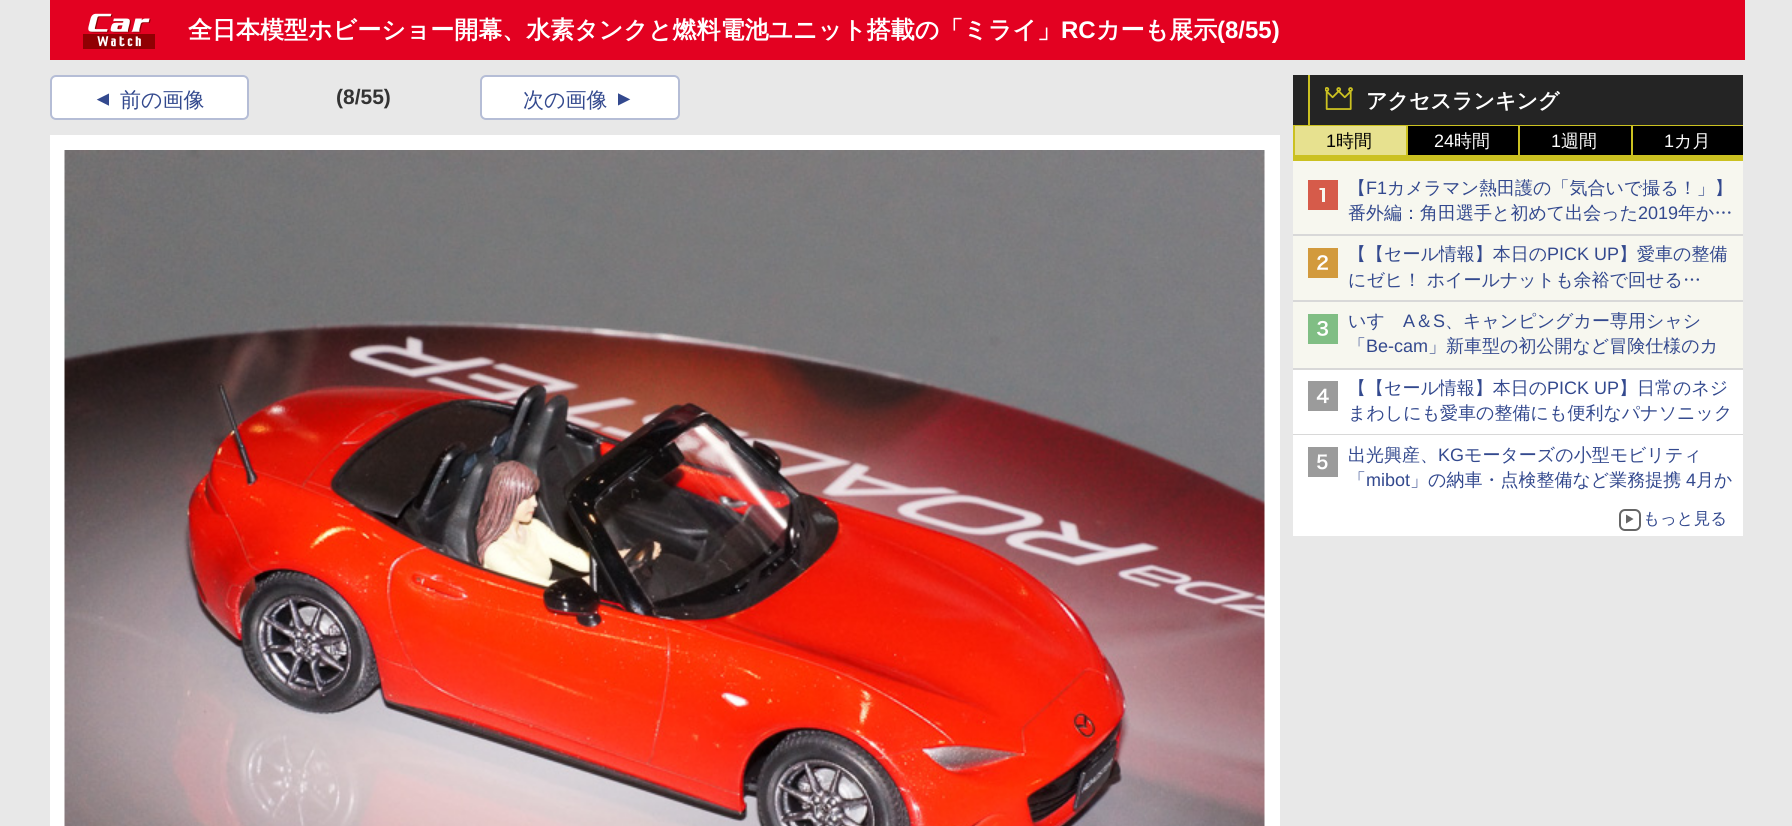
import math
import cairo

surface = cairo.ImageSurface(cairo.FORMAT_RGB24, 1792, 826)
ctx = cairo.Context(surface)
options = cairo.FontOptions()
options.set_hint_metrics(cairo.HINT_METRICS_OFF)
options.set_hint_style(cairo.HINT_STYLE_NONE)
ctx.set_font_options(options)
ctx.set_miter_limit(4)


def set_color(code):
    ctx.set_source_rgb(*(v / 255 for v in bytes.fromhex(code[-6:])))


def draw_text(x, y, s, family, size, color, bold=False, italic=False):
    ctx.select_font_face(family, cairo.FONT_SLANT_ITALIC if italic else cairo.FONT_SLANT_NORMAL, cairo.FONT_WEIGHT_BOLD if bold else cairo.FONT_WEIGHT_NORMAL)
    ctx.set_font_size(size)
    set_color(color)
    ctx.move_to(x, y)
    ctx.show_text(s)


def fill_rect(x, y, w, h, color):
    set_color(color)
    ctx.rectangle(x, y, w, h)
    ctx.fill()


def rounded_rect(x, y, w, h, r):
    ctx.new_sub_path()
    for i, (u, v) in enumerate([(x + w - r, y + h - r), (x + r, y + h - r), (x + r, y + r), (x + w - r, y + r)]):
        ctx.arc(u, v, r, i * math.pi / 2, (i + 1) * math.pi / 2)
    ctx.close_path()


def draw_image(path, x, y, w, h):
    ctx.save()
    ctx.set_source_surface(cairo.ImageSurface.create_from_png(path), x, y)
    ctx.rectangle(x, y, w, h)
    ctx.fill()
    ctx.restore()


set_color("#e8e8e8")
ctx.paint()
fill_rect(50, 0, 1695, 60, "#e30121")
draw_image("assets/img1.png", 83, 13, 72, 36)
draw_text(188, 38, "全日本模型ホビーショー開幕、水素タンクと燃料電池ユニット搭載の「ミライ」", "WenQuanYi Zen Hei", 24, "#ffffff", bold=True)
draw_text(1061, 38, "RC", "Liberation Sans", 24, "#ffffff", bold=True)
draw_text(1096, 38, "カーも展示", "WenQuanYi Zen Hei", 24, "#ffffff", bold=True)
draw_text(1217, 38, "(8/55)", "Liberation Sans", 24, "#ffffff", bold=True)
rounded_rect(50, 75, 199, 45, 6)
ctx.fill()
rounded_rect(51, 76, 197, 43, 5)
ctx.set_source_rgba(0.196, 0.286, 0.557, 0.36)
ctx.stroke()
ctx.save()
ctx.translate(109, 110)
ctx.rotate(-90 * math.pi / 180)
draw_text(0, 0, "▲", "Liberation Sans", 21, "#33498e")
ctx.restore()
draw_text(120, 107, "前の画像", "WenQuanYi Zen Hei Medium", 21, "#33498e")
draw_text(336, 104, "(8/55)", "Liberation Sans", 21, "#333333", bold=True)
set_color("#ffffff")
rounded_rect(480, 75, 200, 45, 6)
ctx.fill()
rounded_rect(481, 76, 198, 43, 5)
ctx.set_source_rgba(0.196, 0.286, 0.557, 0.36)
ctx.stroke()
draw_text(523, 107, "次の画像", "WenQuanYi Zen Hei Medium", 21, "#33498e")
ctx.save()
ctx.translate(618, 89)
ctx.rotate(90 * math.pi / 180)
draw_text(0, 0, "▲", "Liberation Sans", 21, "#33498e")
ctx.restore()
fill_rect(50, 135, 1230, 691, "#ffffff")
draw_image("assets/img2.png", 64, 150, 1201, 676)
fill_rect(1293, 75, 450, 50, "#242424")
fill_rect(1293, 125, 450, 1, "#cbc121")
fill_rect(1308, 75, 2, 51, "#cbc121")
draw_image("assets/img3.png", 1325, 87, 28, 23)
draw_text(1366, 108, "アクセスランキング", "WenQuanYi Zen Hei", 21, "#ffffff", bold=True)
fill_rect(1295, 126, 111, 29, "#e7e18f")
fill_rect(1293, 155, 450, 6, "#cbc121")
fill_rect(1293, 126, 2, 35, "#cbc121")
draw_text(1326, 147, "1", "Liberation Sans", 18, "#000000")
draw_text(1336, 147, "時間", "WenQuanYi Zen Hei Medium", 18, "#000000")
fill_rect(1408, 126, 110, 29, "#000000")
fill_rect(1406, 126, 2, 35, "#cbc121")
draw_text(1434, 147, "24", "Liberation Sans", 18, "#ffffff")
draw_text(1454, 147, "時間", "WenQuanYi Zen Hei Medium", 18, "#ffffff")
fill_rect(1520, 126, 111, 29, "#000000")
fill_rect(1518, 126, 2, 35, "#cbc121")
draw_text(1551, 147, "1", "Liberation Sans", 18, "#ffffff")
draw_text(1561, 147, "週間", "WenQuanYi Zen Hei Medium", 18, "#ffffff")
fill_rect(1633, 126, 110, 29, "#000000")
fill_rect(1631, 126, 2, 35, "#cbc121")
draw_text(1664, 147, "1", "Liberation Sans", 18, "#ffffff")
draw_text(1674, 147, "カ月", "WenQuanYi Zen Hei Medium", 18, "#ffffff")
fill_rect(1293, 161, 450, 73, "#f7f7ef")
fill_rect(1293, 370, 450, 64, "#ffffff")
fill_rect(1293, 234, 450, 2, "#d8d8d8")
fill_rect(1308, 180, 30, 30, "#d65b4a")
set_color("#f7f7ef")
ctx.new_path()
ctx.move_to(1325, 202)
ctx.line_to(1325, 188)
ctx.line_to(1319.5, 188)
ctx.line_to(1319.5, 190)
ctx.line_to(1322, 190)
ctx.line_to(1322, 202)
ctx.close_path()
ctx.fill()
draw_text(1348, 194, "【", "WenQuanYi Zen Hei Medium", 18, "#33498e")
draw_text(1366, 194, "F1", "Liberation Sans", 18, "#33498e")
draw_text(1387, 194, "カメラマン熱田護の「気合いで撮る！」】", "WenQuanYi Zen Hei Medium", 18, "#33498e")
draw_text(1348, 219, "番外編：角田選手と初めて出会った", "WenQuanYi Zen Hei Medium", 18, "#33498e")
draw_text(1638, 219, "2019", "Liberation Sans", 18, "#33498e")
draw_text(1678, 219, "年か…", "WenQuanYi Zen Hei Medium", 18, "#33498e")
fill_rect(1293, 236, 450, 64, "#f7f7ef")
fill_rect(1293, 300, 450, 2, "#d8d8d8")
draw_image("assets/img4.png", 1308, 248, 30, 30)
draw_text(1348, 260, "【【セール情報】本日の", "WenQuanYi Zen Hei Medium", 18, "#33498e")
draw_text(1547, 260, "PICK UP", "Liberation Sans", 18, "#33498e")
draw_text(1619, 260, "】愛車の整備", "WenQuanYi Zen Hei Medium", 18, "#33498e")
draw_text(1348, 286, "にゼヒ！ ホイールナットも余裕で回せる…", "WenQuanYi Zen Hei Medium", 18, "#33498e")
fill_rect(1293, 302, 450, 66, "#f7f7ef")
fill_rect(1293, 368, 450, 2, "#d8d8d8")
draw_image("assets/img5.png", 1308, 314, 30, 30)
draw_text(1348, 327, "いすゞ", "WenQuanYi Zen Hei Medium", 18, "#33498e")
draw_text(1403, 327, "A", "Liberation Sans", 18, "#33498e")
draw_text(1415, 327, "＆", "WenQuanYi Zen Hei Medium", 18, "#33498e")
draw_text(1433, 327, "S", "Liberation Sans", 18, "#33498e")
draw_text(1445, 327, "、キャンピングカー専用シャシ", "WenQuanYi Zen Hei Medium", 18, "#33498e")
draw_text(1348, 352, "「", "WenQuanYi Zen Hei Medium", 18, "#33498e")
draw_text(1366, 352, "Be-cam", "Liberation Sans", 18, "#33498e")
draw_text(1428, 352, "」新車型の初公開など冒険仕様のカ", "WenQuanYi Zen Hei Medium", 18, "#33498e")
fill_rect(1293, 434, 450, 1, "#d8d8d8")
draw_image("assets/img6.png", 1308, 381, 30, 30)
draw_text(1348, 394, "【【セール情報】本日の", "WenQuanYi Zen Hei Medium", 18, "#33498e")
draw_text(1547, 394, "PICK UP", "Liberation Sans", 18, "#33498e")
draw_text(1619, 394, "】日常のネジ", "WenQuanYi Zen Hei Medium", 18, "#33498e")
draw_text(1348, 419, "まわしにも愛車の整備にも便利なパナソニック", "WenQuanYi Zen Hei Medium", 18, "#33498e")
fill_rect(1293, 435, 450, 101, "#ffffff")
draw_image("assets/img7.png", 1308, 447, 30, 30)
draw_text(1348, 461, "出光興産、", "WenQuanYi Zen Hei Medium", 18, "#33498e")
draw_text(1438, 461, "KG", "Liberation Sans", 18, "#33498e")
draw_text(1464, 461, "モーターズの小型モビリティ", "WenQuanYi Zen Hei Medium", 18, "#33498e")
draw_text(1348, 486, "「", "WenQuanYi Zen Hei Medium", 18, "#33498e")
draw_text(1366, 486, "mibot", "Liberation Sans", 18, "#33498e")
draw_text(1410, 486, "」の納車・点検整備など業務提携", "WenQuanYi Zen Hei Medium", 18, "#33498e")
draw_text(1686, 486, "4", "Liberation Sans", 18, "#33498e")
draw_text(1696, 486, "月か", "WenQuanYi Zen Hei Medium", 18, "#33498e")
rounded_rect(1620, 510, 20, 20, 5)
set_color("#666666")
ctx.stroke()
draw_text(1643, 524, "もっと見る", "WenQuanYi Zen Hei Medium", 16.5, "#33498e")
set_color("#666666")
ctx.new_path()
ctx.move_to(1626, 523.5)
ctx.line_to(1626, 514.5)
ctx.line_to(1633.5, 519)
ctx.close_path()
ctx.fill()
surface.write_to_png("output.png")
